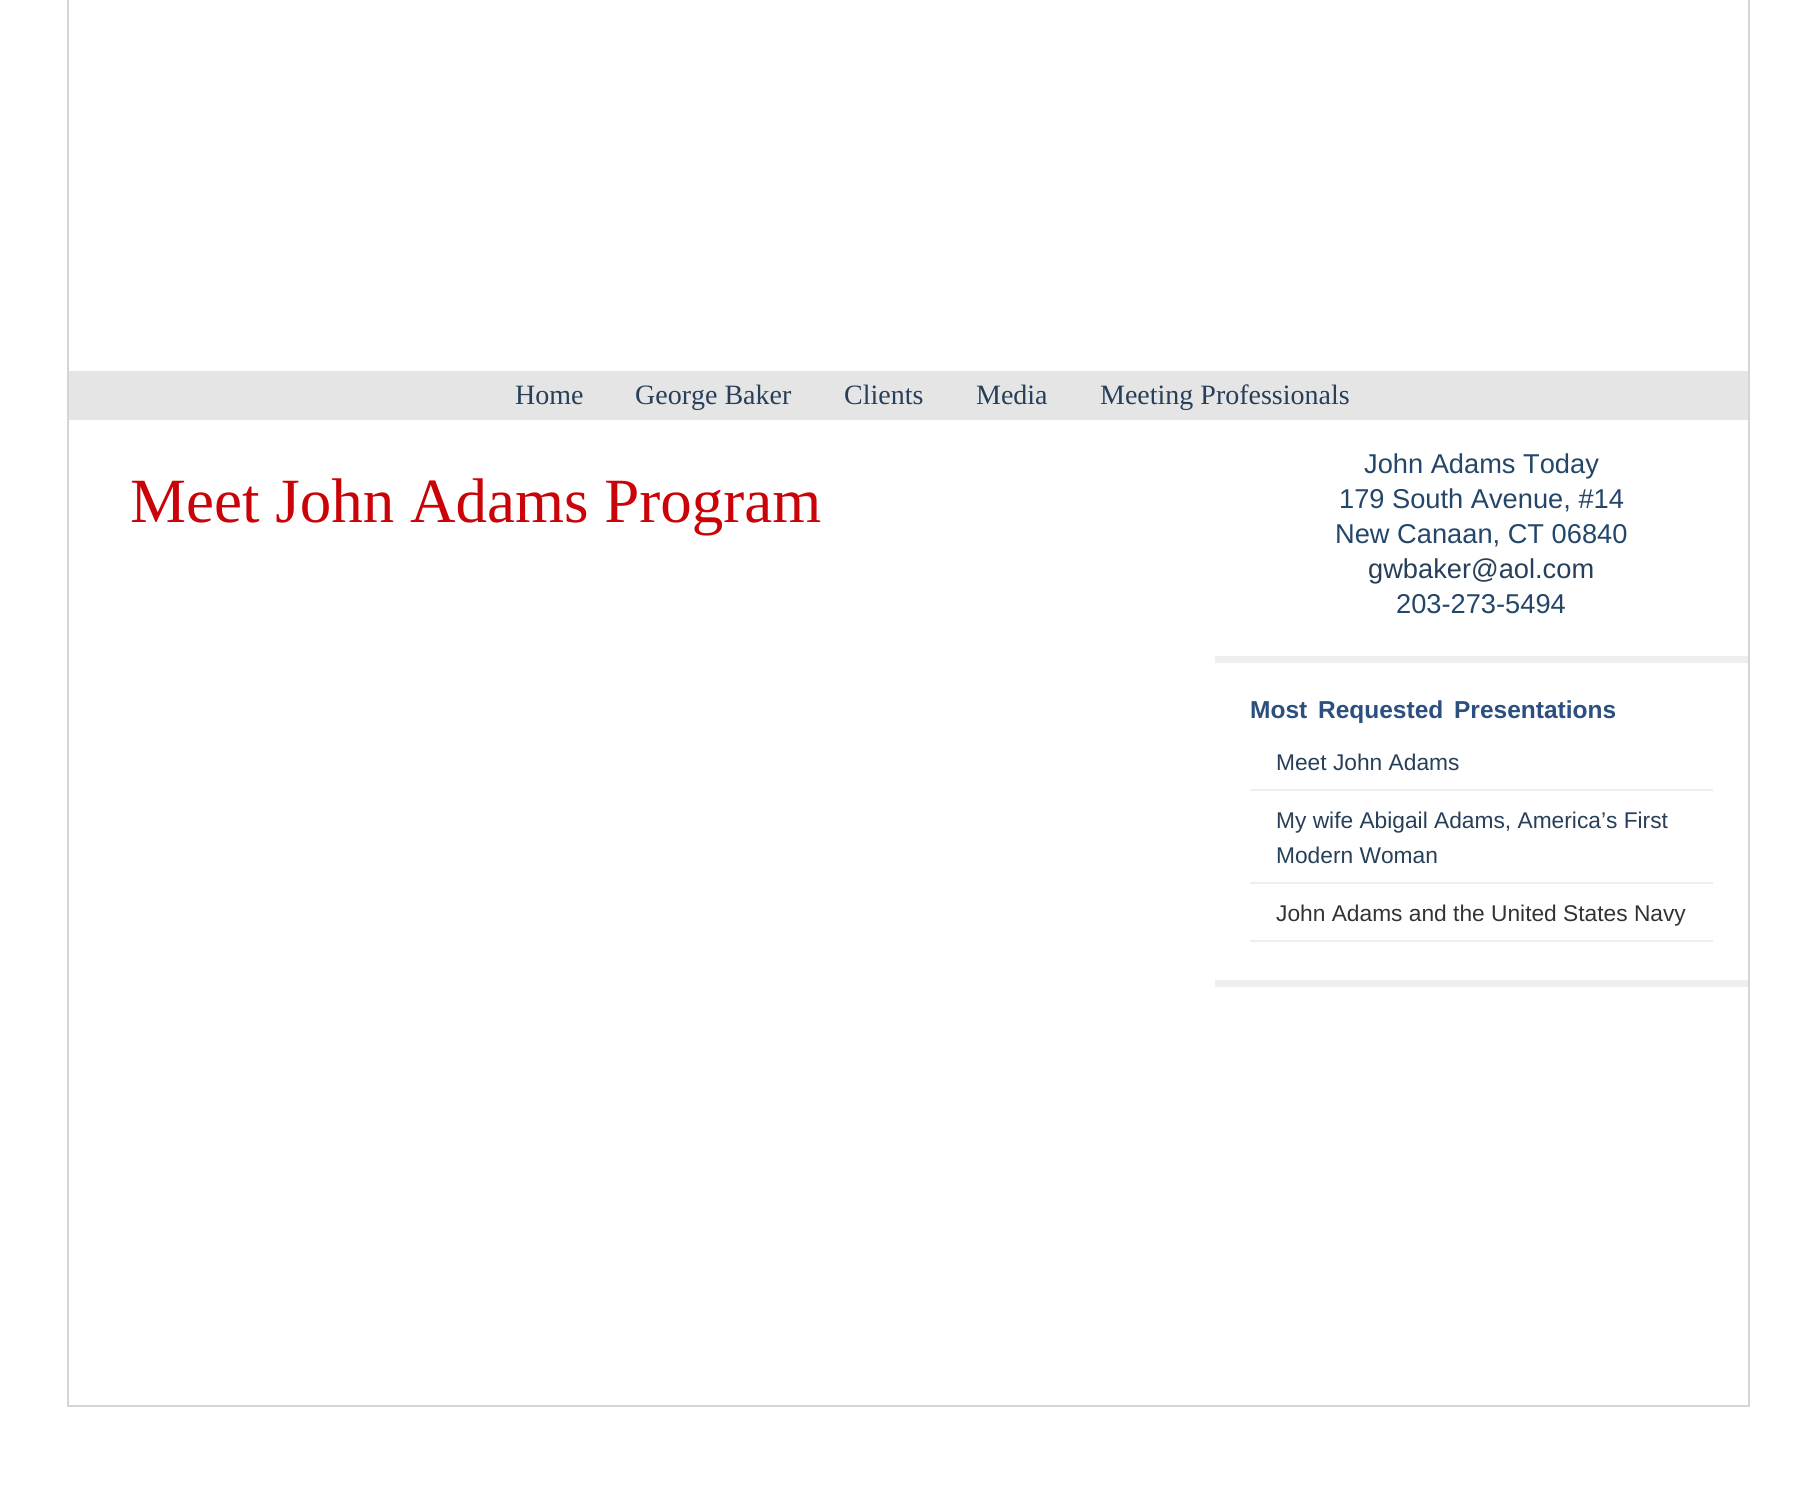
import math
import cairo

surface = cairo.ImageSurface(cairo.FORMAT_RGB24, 1816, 1494)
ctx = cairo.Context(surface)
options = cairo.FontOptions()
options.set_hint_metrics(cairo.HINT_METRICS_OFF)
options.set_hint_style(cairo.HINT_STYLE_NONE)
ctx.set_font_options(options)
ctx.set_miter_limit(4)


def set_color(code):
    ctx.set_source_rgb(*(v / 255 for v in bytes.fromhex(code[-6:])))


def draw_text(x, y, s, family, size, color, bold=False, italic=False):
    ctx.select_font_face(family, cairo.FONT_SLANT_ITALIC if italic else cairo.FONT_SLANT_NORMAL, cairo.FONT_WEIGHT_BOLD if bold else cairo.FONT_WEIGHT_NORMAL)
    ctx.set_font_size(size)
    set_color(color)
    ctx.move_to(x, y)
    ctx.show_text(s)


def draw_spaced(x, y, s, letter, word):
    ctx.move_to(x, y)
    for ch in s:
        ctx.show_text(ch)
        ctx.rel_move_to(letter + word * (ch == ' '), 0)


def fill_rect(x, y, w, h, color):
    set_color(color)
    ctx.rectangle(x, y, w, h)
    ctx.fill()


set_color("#ffffff")
ctx.paint()
fill_rect(1748, 0, 2, 1407, "#d5d5d5")
fill_rect(67, 0, 2, 420, "#d5d5d5")
fill_rect(69, 371, 1679, 49, "#e5e5e5")
draw_text(515, 404, "Home", "Liberation Serif", 28, "#273f59")
draw_text(635, 404, "George Baker", "Liberation Serif", 28, "#273f59")
draw_text(844, 404, "Clients", "Liberation Serif", 28, "#273f59")
draw_text(976, 404, "Media", "Liberation Serif", 28, "#273f59")
draw_text(1100, 404, "Meeting Professionals", "Liberation Serif", 28, "#273f59")
fill_rect(67, 1405, 1683, 2, "#d5d5d5")
fill_rect(67, 420, 2, 987, "#d5d5d5")
draw_text(130, 522, "Meet John Adams Program", "Liberation Serif", 63, "#ca0308")
fill_rect(1215, 656, 533, 7, "#eeeeee")
draw_text(1364, 473, "John Adams Today", "Liberation Sans", 27.25, "#244669")
draw_text(1339, 508, "179 South Avenue, #14", "Liberation Sans", 27.25, "#244669")
draw_text(1335, 543, "New Canaan, CT 06840", "Liberation Sans", 27.25, "#244669")
draw_text(1368, 578, "gwbaker@aol.com", "Liberation Sans", 27.25, "#273f59")
draw_text(1396, 613, "203-273-5494", "Liberation Sans", 27.25, "#244669")
fill_rect(1215, 980, 533, 7, "#eeeeee")
ctx.select_font_face("Liberation Sans", cairo.FONT_SLANT_NORMAL, cairo.FONT_WEIGHT_BOLD)
ctx.set_font_size(24.5)
set_color("#2b4f7f")
draw_spaced(1250, 718, "Most Requested Presentations", 0, 4)
fill_rect(1250, 789, 463, 2, "#eeeeee")
draw_text(1276, 770, "Meet John Adams", "Liberation Sans", 22.75, "#273f59")
fill_rect(1250, 882, 463, 2, "#eeeeee")
draw_text(1276, 828, "My wife Abigail Adams, America’s First", "Liberation Sans", 22.75, "#273f59")
draw_text(1276, 863, "Modern Woman", "Liberation Sans", 22.75, "#273f59")
fill_rect(1250, 940, 463, 2, "#eeeeee")
draw_text(1276, 921, "John Adams and the United States Navy", "Liberation Sans", 22.75, "#333333")
surface.write_to_png("output.png")
